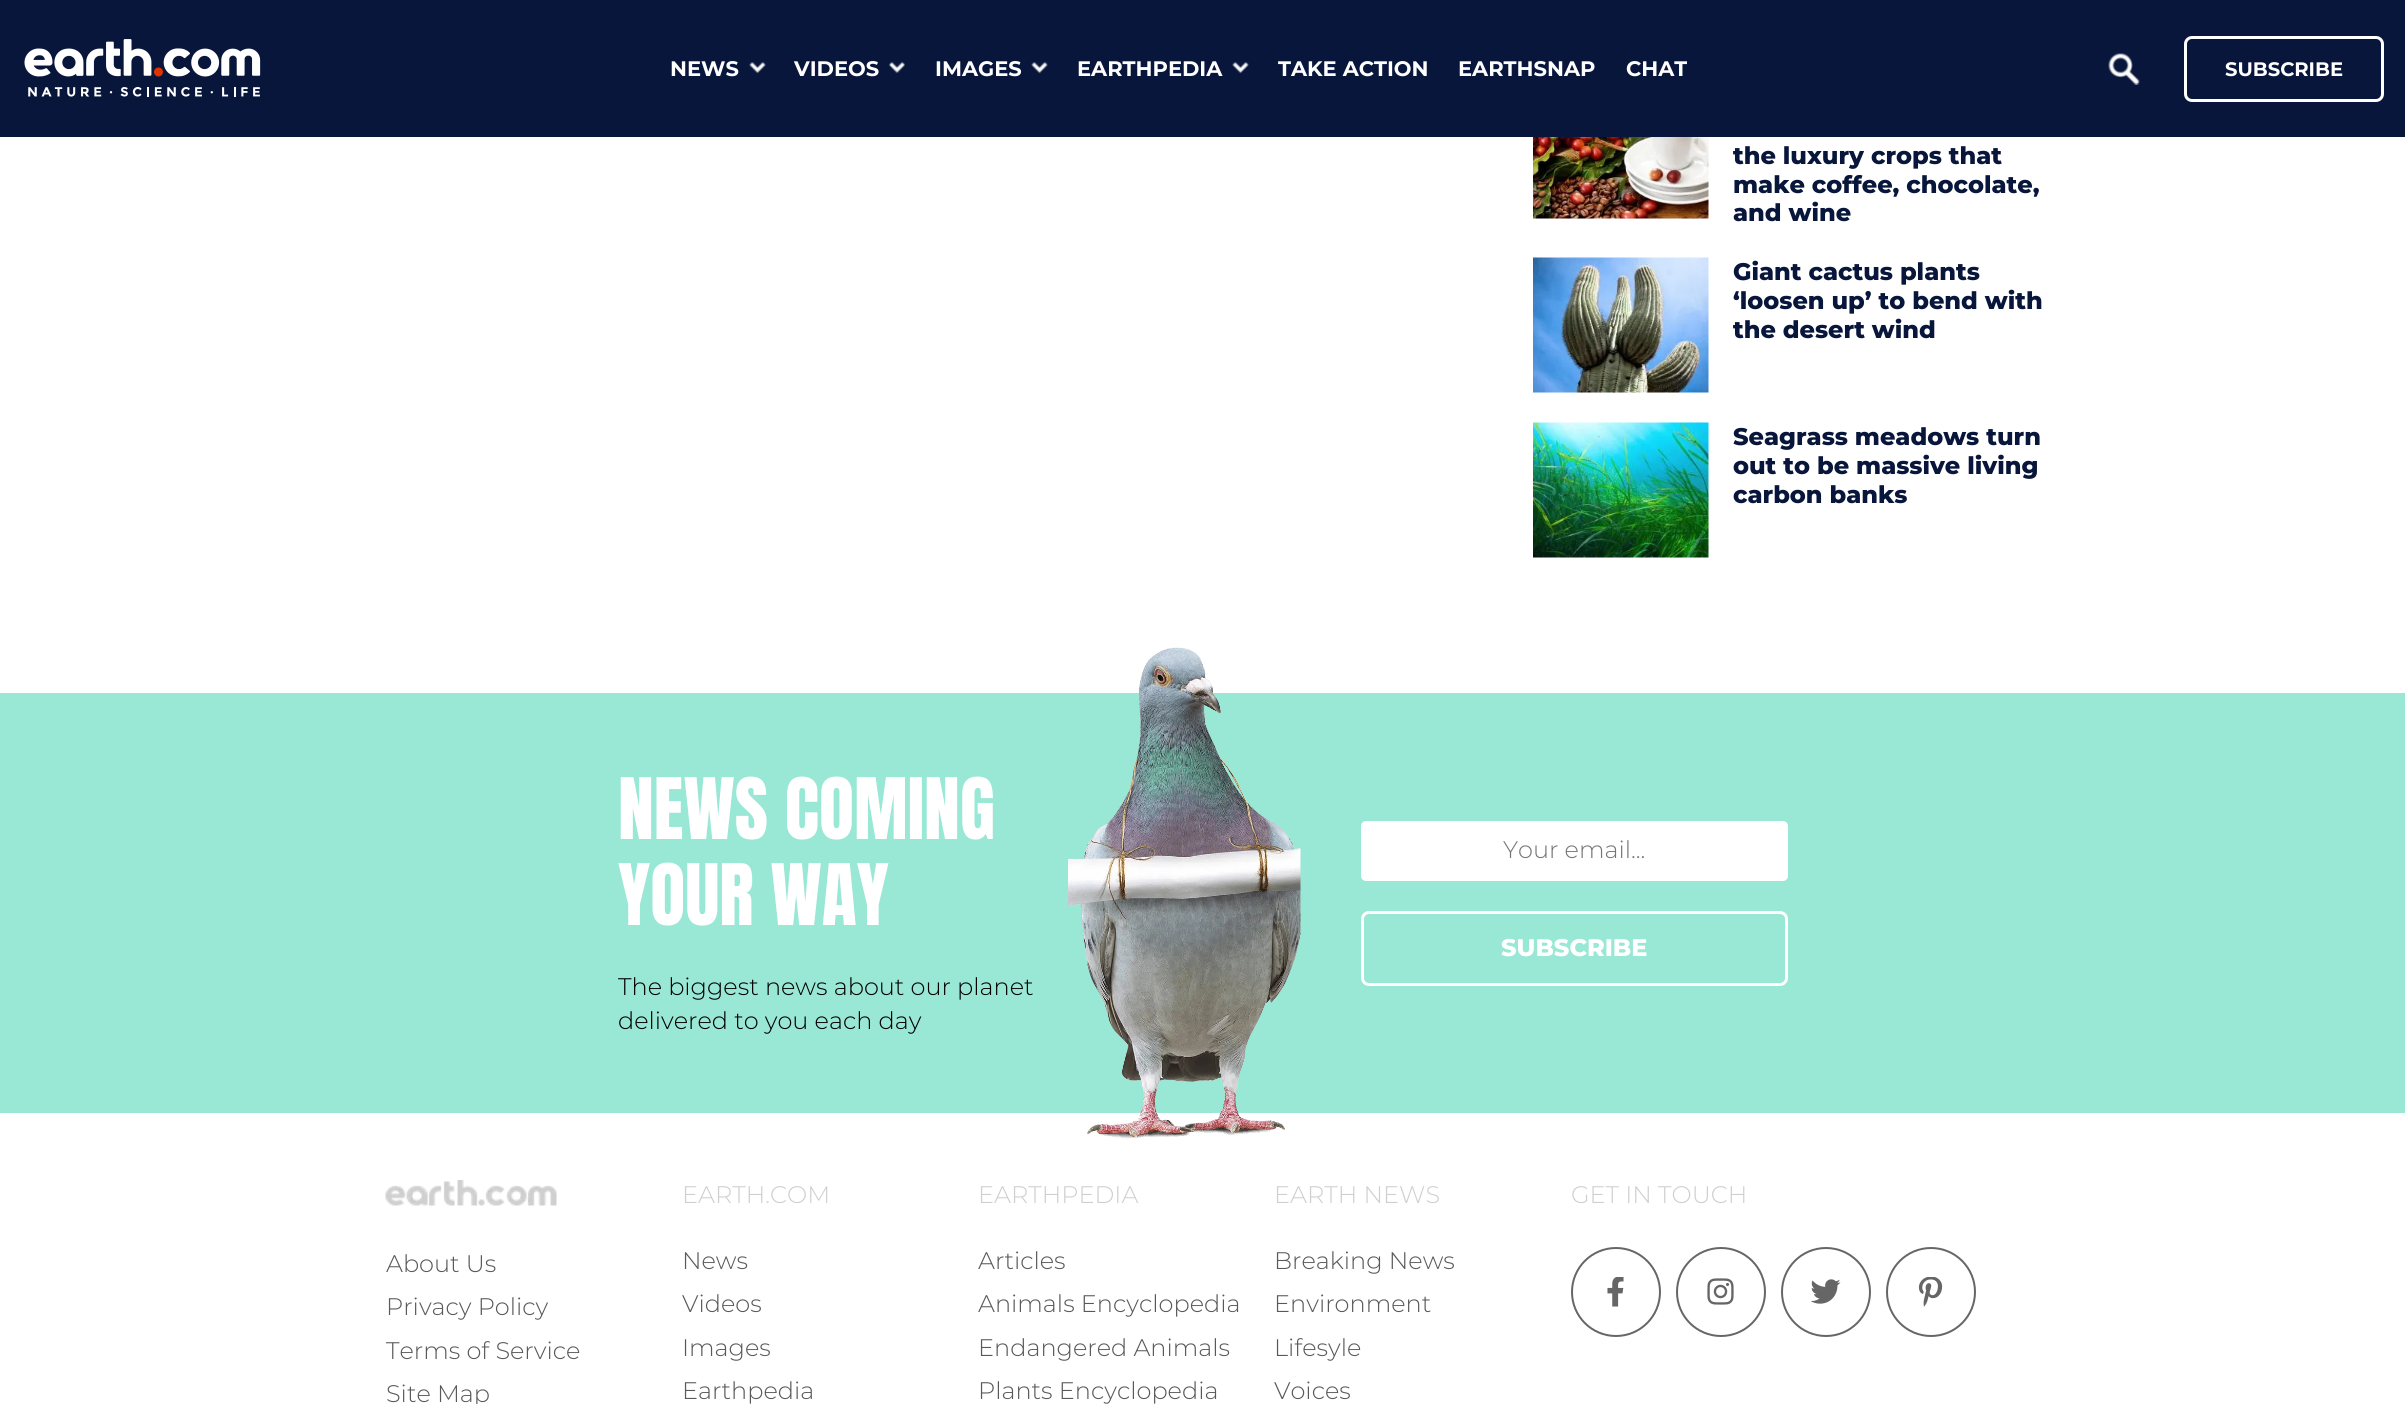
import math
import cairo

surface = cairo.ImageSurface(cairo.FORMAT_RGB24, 2405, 1404)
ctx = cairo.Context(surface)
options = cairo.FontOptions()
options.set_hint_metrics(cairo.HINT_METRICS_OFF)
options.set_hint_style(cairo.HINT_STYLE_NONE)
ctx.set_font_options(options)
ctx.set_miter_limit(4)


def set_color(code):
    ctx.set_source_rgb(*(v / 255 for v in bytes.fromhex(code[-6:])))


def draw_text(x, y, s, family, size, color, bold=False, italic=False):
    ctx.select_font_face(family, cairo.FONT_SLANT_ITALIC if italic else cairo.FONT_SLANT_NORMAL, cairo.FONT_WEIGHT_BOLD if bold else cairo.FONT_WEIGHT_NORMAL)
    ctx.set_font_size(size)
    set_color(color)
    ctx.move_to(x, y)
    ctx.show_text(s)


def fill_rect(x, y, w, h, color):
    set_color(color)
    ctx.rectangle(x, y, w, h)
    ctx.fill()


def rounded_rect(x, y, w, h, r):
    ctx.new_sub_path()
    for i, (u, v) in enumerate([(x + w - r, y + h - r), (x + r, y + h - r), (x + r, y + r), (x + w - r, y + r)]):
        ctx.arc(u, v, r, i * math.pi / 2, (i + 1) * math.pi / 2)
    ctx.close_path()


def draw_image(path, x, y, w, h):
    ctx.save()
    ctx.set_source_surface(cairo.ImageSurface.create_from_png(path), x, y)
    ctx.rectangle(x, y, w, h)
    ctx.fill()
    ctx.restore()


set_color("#ffffff")
ctx.paint()
fill_rect(0, 0, 2405, 137, "#08163b")
draw_image("assets/img1.png", 24, 39, 237, 58)
draw_text(670, 76, "NEWS", "Montserrat", 21, "#ffffff", bold=True)
draw_image("assets/img2.png", 749, 62, 17, 12)
draw_text(794, 76, "VIDEOS", "Montserrat", 21, "#ffffff", bold=True)
draw_image("assets/img3.png", 889, 61, 16, 13)
draw_text(935, 76, "IMAGES", "Montserrat", 21, "#ffffff", bold=True)
draw_image("assets/img2.png", 1031, 62, 17, 12)
draw_text(1077, 76, "EARTHPEDIA", "Montserrat", 21, "#ffffff", bold=True)
draw_image("assets/img2.png", 1232, 62, 17, 12)
draw_text(1278, 76, "TAKE ACTION", "Montserrat", 21, "#ffffff", bold=True)
draw_text(1458, 76, "EARTHSNAP", "Montserrat", 21, "#ffffff", bold=True)
draw_text(1626, 76, "CHAT", "Montserrat", 21, "#ffffff", bold=True)
draw_image("assets/img4.png", 2108, 53, 32, 32)
rounded_rect(2185.5, 37.5, 197, 63, 6.5)
ctx.set_line_width(3)
ctx.stroke()
draw_text(2225, 76, "SUBSCRIBE", "Montserrat", 19.5, "#ffffff", bold=True)
draw_image("assets/img5.png", 1533, 137, 176, 82)
draw_text(1733, 164, "the luxury crops that", "Montserrat ExtraBold", 24, "#08163b")
draw_text(1733, 193, "make coffee, chocolate,", "Montserrat ExtraBold", 24, "#08163b")
draw_text(1733, 221, "and wine", "Montserrat ExtraBold", 24, "#08163b")
draw_image("assets/img6.png", 1533, 257, 176, 136)
draw_text(1733, 280, "Giant cactus plants", "Montserrat ExtraBold", 24, "#08163b")
draw_text(1733, 309, "‘loosen up’ to bend with", "Montserrat ExtraBold", 24, "#08163b")
draw_text(1733, 338, "the desert wind", "Montserrat ExtraBold", 24, "#08163b")
draw_image("assets/img7.png", 1533, 422, 176, 136)
draw_text(1733, 445, "Seagrass meadows turn", "Montserrat ExtraBold", 24, "#08163b")
draw_text(1733, 474, "out to be massive living", "Montserrat ExtraBold", 24, "#08163b")
draw_text(1733, 503, "carbon banks", "Montserrat ExtraBold", 24, "#08163b")
fill_rect(0, 693, 2405, 420, "#99e7d5")
draw_text(618, 839, "NEWS COMING", "Anton", 72, "#ffffff")
draw_text(618, 925, "YOUR WAY", "Anton", 72, "#ffffff")
draw_text(618, 995, "The biggest news about our planet", "Montserrat Light", 24, "#000000")
draw_text(618, 1029, "delivered to you each day", "Montserrat Light", 24, "#000000")
draw_image("assets/img8.png", 1068, 647, 233, 493)
set_color("#ffffff")
rounded_rect(1361, 821, 427, 60, 5)
ctx.fill()
draw_text(1503, 858, "Your email...", "Montserrat Light", 24, "#757575")
rounded_rect(1362.5, 912.5, 424, 72, 6.5)
set_color("#ffffff")
ctx.stroke()
draw_text(1501, 956, "SUBSCRIBE", "Montserrat ExtraBold", 24, "#ffffff")
draw_text(682, 1203, "EARTH.COM", "Montserrat Light", 24, "#cfcfcf")
draw_text(682, 1269, "News", "Montserrat Light", 24, "#595959")
draw_text(682, 1312, "Videos", "Montserrat Light", 24, "#595959")
draw_text(682, 1356, "Images", "Montserrat Light", 24, "#595959")
draw_text(682, 1399, "Earthpedia", "Montserrat Light", 24, "#595959")
draw_text(978, 1203, "EARTHPEDIA", "Montserrat Light", 24, "#cfcfcf")
draw_text(978, 1269, "Articles", "Montserrat Light", 24, "#595959")
draw_text(978, 1312, "Animals Encyclopedia", "Montserrat Light", 24, "#595959")
draw_text(978, 1356, "Endangered Animals", "Montserrat Light", 24, "#595959")
draw_text(978, 1399, "Plants Encyclopedia", "Montserrat Light", 24, "#595959")
draw_text(1274, 1203, "EARTH NEWS", "Montserrat Light", 24, "#cfcfcf")
draw_text(1274, 1269, "Breaking News", "Montserrat Light", 24, "#595959")
draw_text(1274, 1312, "Environment", "Montserrat Light", 24, "#595959")
draw_text(1274, 1356, "Lifesyle", "Montserrat Light", 24, "#595959")
draw_text(1274, 1399, "Voices", "Montserrat Light", 24, "#595959")
draw_text(1571, 1203, "GET IN TOUCH", "Montserrat Light", 24, "#cfcfcf")
ctx.new_path()
ctx.arc(1616, 1292, 44, 0, 2 * math.pi)
set_color("#666666")
ctx.set_line_width(2)
ctx.stroke()
draw_image("assets/img9.png", 1607, 1277, 17, 30)
ctx.arc(1721, 1292, 44, 0, 2 * math.pi)
ctx.stroke()
draw_image("assets/img10.png", 1707, 1278, 27, 27)
ctx.arc(1826, 1292, 44, 0, 2 * math.pi)
ctx.stroke()
draw_image("assets/img11.png", 1811, 1279, 30, 25)
ctx.arc(1931, 1292, 44, 0, 2 * math.pi)
ctx.stroke()
draw_image("assets/img12.png", 1918, 1277, 25, 30)
draw_image("assets/img13.png", 385, 1180, 172, 26)
draw_text(386, 1272, "About Us", "Montserrat Light", 24, "#595959")
draw_text(386, 1315, "Privacy Policy", "Montserrat Light", 24, "#595959")
draw_text(386, 1359, "Terms of Service", "Montserrat Light", 24, "#595959")
draw_text(386, 1402, "Site Map", "Montserrat Light", 24, "#595959")
surface.write_to_png("output.png")
